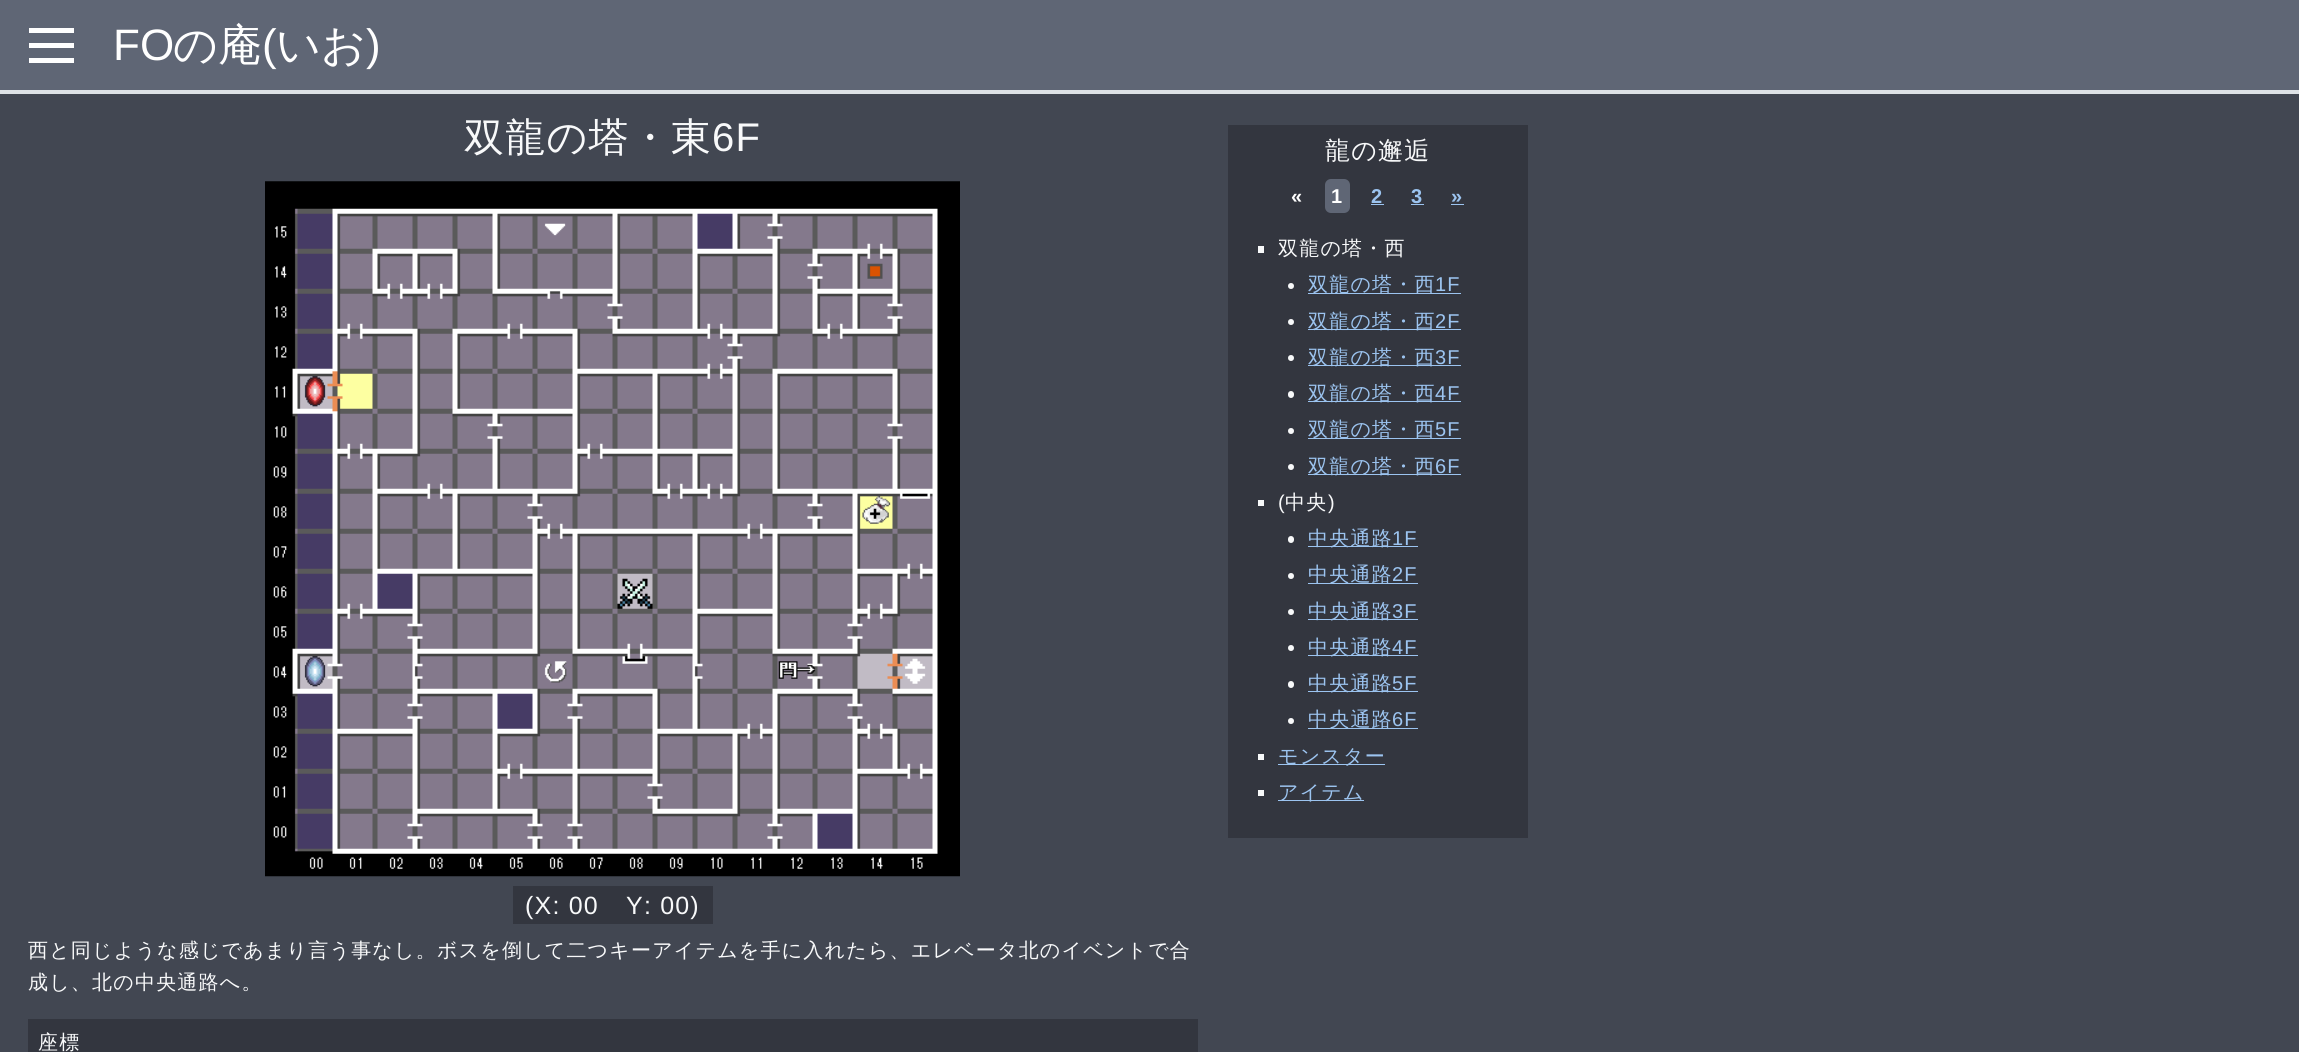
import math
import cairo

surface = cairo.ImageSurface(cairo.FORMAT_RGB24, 2299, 1052)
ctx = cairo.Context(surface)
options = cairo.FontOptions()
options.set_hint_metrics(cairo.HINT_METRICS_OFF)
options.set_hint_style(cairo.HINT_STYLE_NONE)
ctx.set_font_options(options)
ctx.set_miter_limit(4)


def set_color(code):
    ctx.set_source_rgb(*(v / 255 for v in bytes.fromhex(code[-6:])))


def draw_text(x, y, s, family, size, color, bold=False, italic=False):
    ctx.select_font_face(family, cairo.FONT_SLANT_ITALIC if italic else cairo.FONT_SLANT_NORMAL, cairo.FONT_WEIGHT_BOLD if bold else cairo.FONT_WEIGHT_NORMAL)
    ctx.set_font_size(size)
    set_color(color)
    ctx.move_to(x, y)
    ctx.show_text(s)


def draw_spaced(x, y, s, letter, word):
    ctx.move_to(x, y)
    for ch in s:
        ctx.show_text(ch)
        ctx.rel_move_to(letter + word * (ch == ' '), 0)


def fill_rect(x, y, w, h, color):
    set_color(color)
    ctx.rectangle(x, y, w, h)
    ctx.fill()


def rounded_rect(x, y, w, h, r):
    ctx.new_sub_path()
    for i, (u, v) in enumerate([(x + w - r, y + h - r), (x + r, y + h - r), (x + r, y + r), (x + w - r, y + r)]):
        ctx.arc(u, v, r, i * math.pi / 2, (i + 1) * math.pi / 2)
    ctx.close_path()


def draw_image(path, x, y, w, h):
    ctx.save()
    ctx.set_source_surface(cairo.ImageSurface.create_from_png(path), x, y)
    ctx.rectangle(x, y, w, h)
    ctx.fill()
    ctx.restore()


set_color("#424752")
ctx.paint()
fill_rect(0, 0, 2299, 90, "#5f6675")
fill_rect(0, 90, 2299, 4, "#dee2e6")
fill_rect(29, 28, 45, 5, "#ffffff")
fill_rect(29, 43, 45, 5, "#ffffff")
fill_rect(29, 58, 45, 5, "#ffffff")
draw_text(113, 60, "FO", "Liberation Sans", 44, "#ffffff")
draw_text(173, 60, "の庵", "WenQuanYi Zen Hei Medium", 44, "#ffffff")
draw_text(262, 60, "(", "Liberation Sans", 44, "#ffffff")
draw_text(276, 60, "いお", "WenQuanYi Zen Hei Medium", 44, "#ffffff")
draw_text(366, 60, ")", "Liberation Sans", 44, "#ffffff")
ctx.select_font_face("WenQuanYi Zen Hei Medium")
ctx.set_font_size(40)
set_color("#f8f9fa")
draw_spaced(464, 151, "双龍の塔・東", 1.2, 0)
ctx.select_font_face("Liberation Sans")
draw_spaced(712, 151, "6F", 1.2, 0)
draw_image("assets/img1.png", 265, 181, 695, 696)
fill_rect(513, 886, 200, 38, "#33363f")
ctx.set_font_size(25)
set_color("#f8f9fa")
draw_spaced(525, 914, "(X: 00", 1.2, 0)
draw_spaced(626, 914, "Y: 00)", 1.2, 0)
ctx.select_font_face("WenQuanYi Zen Hei Medium")
ctx.set_font_size(20)
draw_spaced(28, 957, "西と同じような感じであまり言う事なし。ボスを倒して二つキーアイテムを手に入れたら、エレベータ北のイベントで合", 1.2, 0)
draw_spaced(28, 989, "成し、北の中央通路へ。", 1.2, 0)
fill_rect(28, 1019, 1170, 33, "#33363f")
set_color("#f8f9fa")
draw_spaced(38, 1049, "座標", 1.2, 0)
fill_rect(1228, 125, 300, 713, "#33363f")
ctx.set_font_size(25)
set_color("#f8f9fa")
draw_spaced(1325, 159, "龍の邂逅", 1.2, 0)
ctx.select_font_face("Liberation Sans", cairo.FONT_SLANT_NORMAL, cairo.FONT_WEIGHT_BOLD)
ctx.set_font_size(20)
set_color("#ffffff")
draw_spaced(1291, 203, "«", 1.2, 0)
set_color("#5f6675")
rounded_rect(1325, 179, 25, 34, 6)
ctx.fill()
set_color("#ffffff")
draw_spaced(1331, 203, "1", 1.2, 0)
set_color("#9cc4f0")
draw_spaced(1371, 203, "2", 1.2, 0)
fill_rect(1371, 204, 13, 1, "#9cc4f0")
draw_spaced(1411, 203, "3", 1.2, 0)
fill_rect(1411, 204, 13, 1, "#9cc4f0")
draw_spaced(1451, 203, "»", 1.2, 0)
fill_rect(1451, 204, 13, 1, "#9cc4f0")
fill_rect(1258, 246, 6, 7, "#f8f9fa")
ctx.select_font_face("WenQuanYi Zen Hei Medium")
draw_spaced(1278, 255, "双龍の塔・西", 1.2, 0)
ctx.new_path()
ctx.arc(1291, 286, 3, 0, 2 * math.pi)
ctx.fill()
fill_rect(1308, 293, 153, 1, "#9cc4f0")
draw_spaced(1308, 291, "双龍の塔・西", 1.2, 0)
ctx.select_font_face("Liberation Sans")
draw_spaced(1435, 291, "1F", 1.2, 0)
set_color("#f8f9fa")
ctx.new_path()
ctx.arc(1291, 322, 3, 0, 2 * math.pi)
ctx.fill()
fill_rect(1308, 329, 153, 1, "#9cc4f0")
ctx.select_font_face("WenQuanYi Zen Hei Medium")
draw_spaced(1308, 328, "双龍の塔・西", 1.2, 0)
ctx.select_font_face("Liberation Sans")
draw_spaced(1435, 328, "2F", 1.2, 0)
set_color("#f8f9fa")
ctx.new_path()
ctx.arc(1291, 358, 3, 0, 2 * math.pi)
ctx.fill()
fill_rect(1308, 365, 153, 1, "#9cc4f0")
ctx.select_font_face("WenQuanYi Zen Hei Medium")
draw_spaced(1308, 364, "双龍の塔・西", 1.2, 0)
ctx.select_font_face("Liberation Sans")
draw_spaced(1435, 364, "3F", 1.2, 0)
set_color("#f8f9fa")
rounded_rect(1288, 391, 6, 7, 3)
ctx.fill()
fill_rect(1308, 401, 153, 1, "#9cc4f0")
ctx.select_font_face("WenQuanYi Zen Hei Medium")
draw_spaced(1308, 400, "双龍の塔・西", 1.2, 0)
ctx.select_font_face("Liberation Sans")
draw_spaced(1435, 400, "4F", 1.2, 0)
set_color("#f8f9fa")
ctx.new_path()
ctx.arc(1291, 431, 3, 0, 2 * math.pi)
ctx.fill()
fill_rect(1308, 438, 153, 1, "#9cc4f0")
ctx.select_font_face("WenQuanYi Zen Hei Medium")
draw_spaced(1308, 436, "双龍の塔・西", 1.2, 0)
ctx.select_font_face("Liberation Sans")
draw_spaced(1435, 436, "5F", 1.2, 0)
set_color("#f8f9fa")
ctx.new_path()
ctx.arc(1291, 467, 3, 0, 2 * math.pi)
ctx.fill()
fill_rect(1308, 474, 153, 1, "#9cc4f0")
ctx.select_font_face("WenQuanYi Zen Hei Medium")
draw_spaced(1308, 473, "双龍の塔・西", 1.2, 0)
ctx.select_font_face("Liberation Sans")
draw_spaced(1435, 473, "6F", 1.2, 0)
fill_rect(1258, 500, 6, 6, "#f8f9fa")
draw_spaced(1278, 509, "(", 1.2, 0)
ctx.select_font_face("WenQuanYi Zen Hei Medium")
draw_spaced(1285, 509, "中央", 1.2, 0)
ctx.select_font_face("Liberation Sans")
draw_spaced(1328, 509, ")", 1.2, 0)
rounded_rect(1288, 536, 6, 7, 3)
ctx.fill()
fill_rect(1308, 546, 110, 1, "#9cc4f0")
ctx.select_font_face("WenQuanYi Zen Hei Medium")
draw_spaced(1308, 545, "中央通路", 1.2, 0)
ctx.select_font_face("Liberation Sans")
draw_spaced(1392, 545, "1F", 1.2, 0)
set_color("#f8f9fa")
ctx.new_path()
ctx.arc(1291, 576, 3, 0, 2 * math.pi)
ctx.fill()
fill_rect(1308, 583, 110, 1, "#9cc4f0")
ctx.select_font_face("WenQuanYi Zen Hei Medium")
draw_spaced(1308, 581, "中央通路", 1.2, 0)
ctx.select_font_face("Liberation Sans")
draw_spaced(1392, 581, "2F", 1.2, 0)
set_color("#f8f9fa")
ctx.new_path()
ctx.arc(1291, 612, 3, 0, 2 * math.pi)
ctx.fill()
fill_rect(1308, 619, 110, 1, "#9cc4f0")
ctx.select_font_face("WenQuanYi Zen Hei Medium")
draw_spaced(1308, 618, "中央通路", 1.2, 0)
ctx.select_font_face("Liberation Sans")
draw_spaced(1392, 618, "3F", 1.2, 0)
set_color("#f8f9fa")
ctx.new_path()
ctx.arc(1291, 648, 3, 0, 2 * math.pi)
ctx.fill()
fill_rect(1308, 655, 110, 1, "#9cc4f0")
ctx.select_font_face("WenQuanYi Zen Hei Medium")
draw_spaced(1308, 654, "中央通路", 1.2, 0)
ctx.select_font_face("Liberation Sans")
draw_spaced(1392, 654, "4F", 1.2, 0)
set_color("#f8f9fa")
rounded_rect(1288, 681, 6, 7, 3)
ctx.fill()
fill_rect(1308, 691, 110, 1, "#9cc4f0")
ctx.select_font_face("WenQuanYi Zen Hei Medium")
draw_spaced(1308, 690, "中央通路", 1.2, 0)
ctx.select_font_face("Liberation Sans")
draw_spaced(1392, 690, "5F", 1.2, 0)
set_color("#f8f9fa")
ctx.new_path()
ctx.arc(1291, 721, 3, 0, 2 * math.pi)
ctx.fill()
fill_rect(1308, 728, 110, 1, "#9cc4f0")
ctx.select_font_face("WenQuanYi Zen Hei Medium")
draw_spaced(1308, 726, "中央通路", 1.2, 0)
ctx.select_font_face("Liberation Sans")
draw_spaced(1392, 726, "6F", 1.2, 0)
fill_rect(1258, 754, 6, 6, "#f8f9fa")
fill_rect(1278, 764, 107, 1, "#9cc4f0")
ctx.select_font_face("WenQuanYi Zen Hei Medium")
draw_spaced(1278, 763, "モンスター", 1.2, 0)
fill_rect(1258, 790, 6, 6, "#f8f9fa")
fill_rect(1278, 800, 86, 1, "#9cc4f0")
draw_spaced(1278, 799, "アイテム", 1.2, 0)
surface.write_to_png("output.png")
